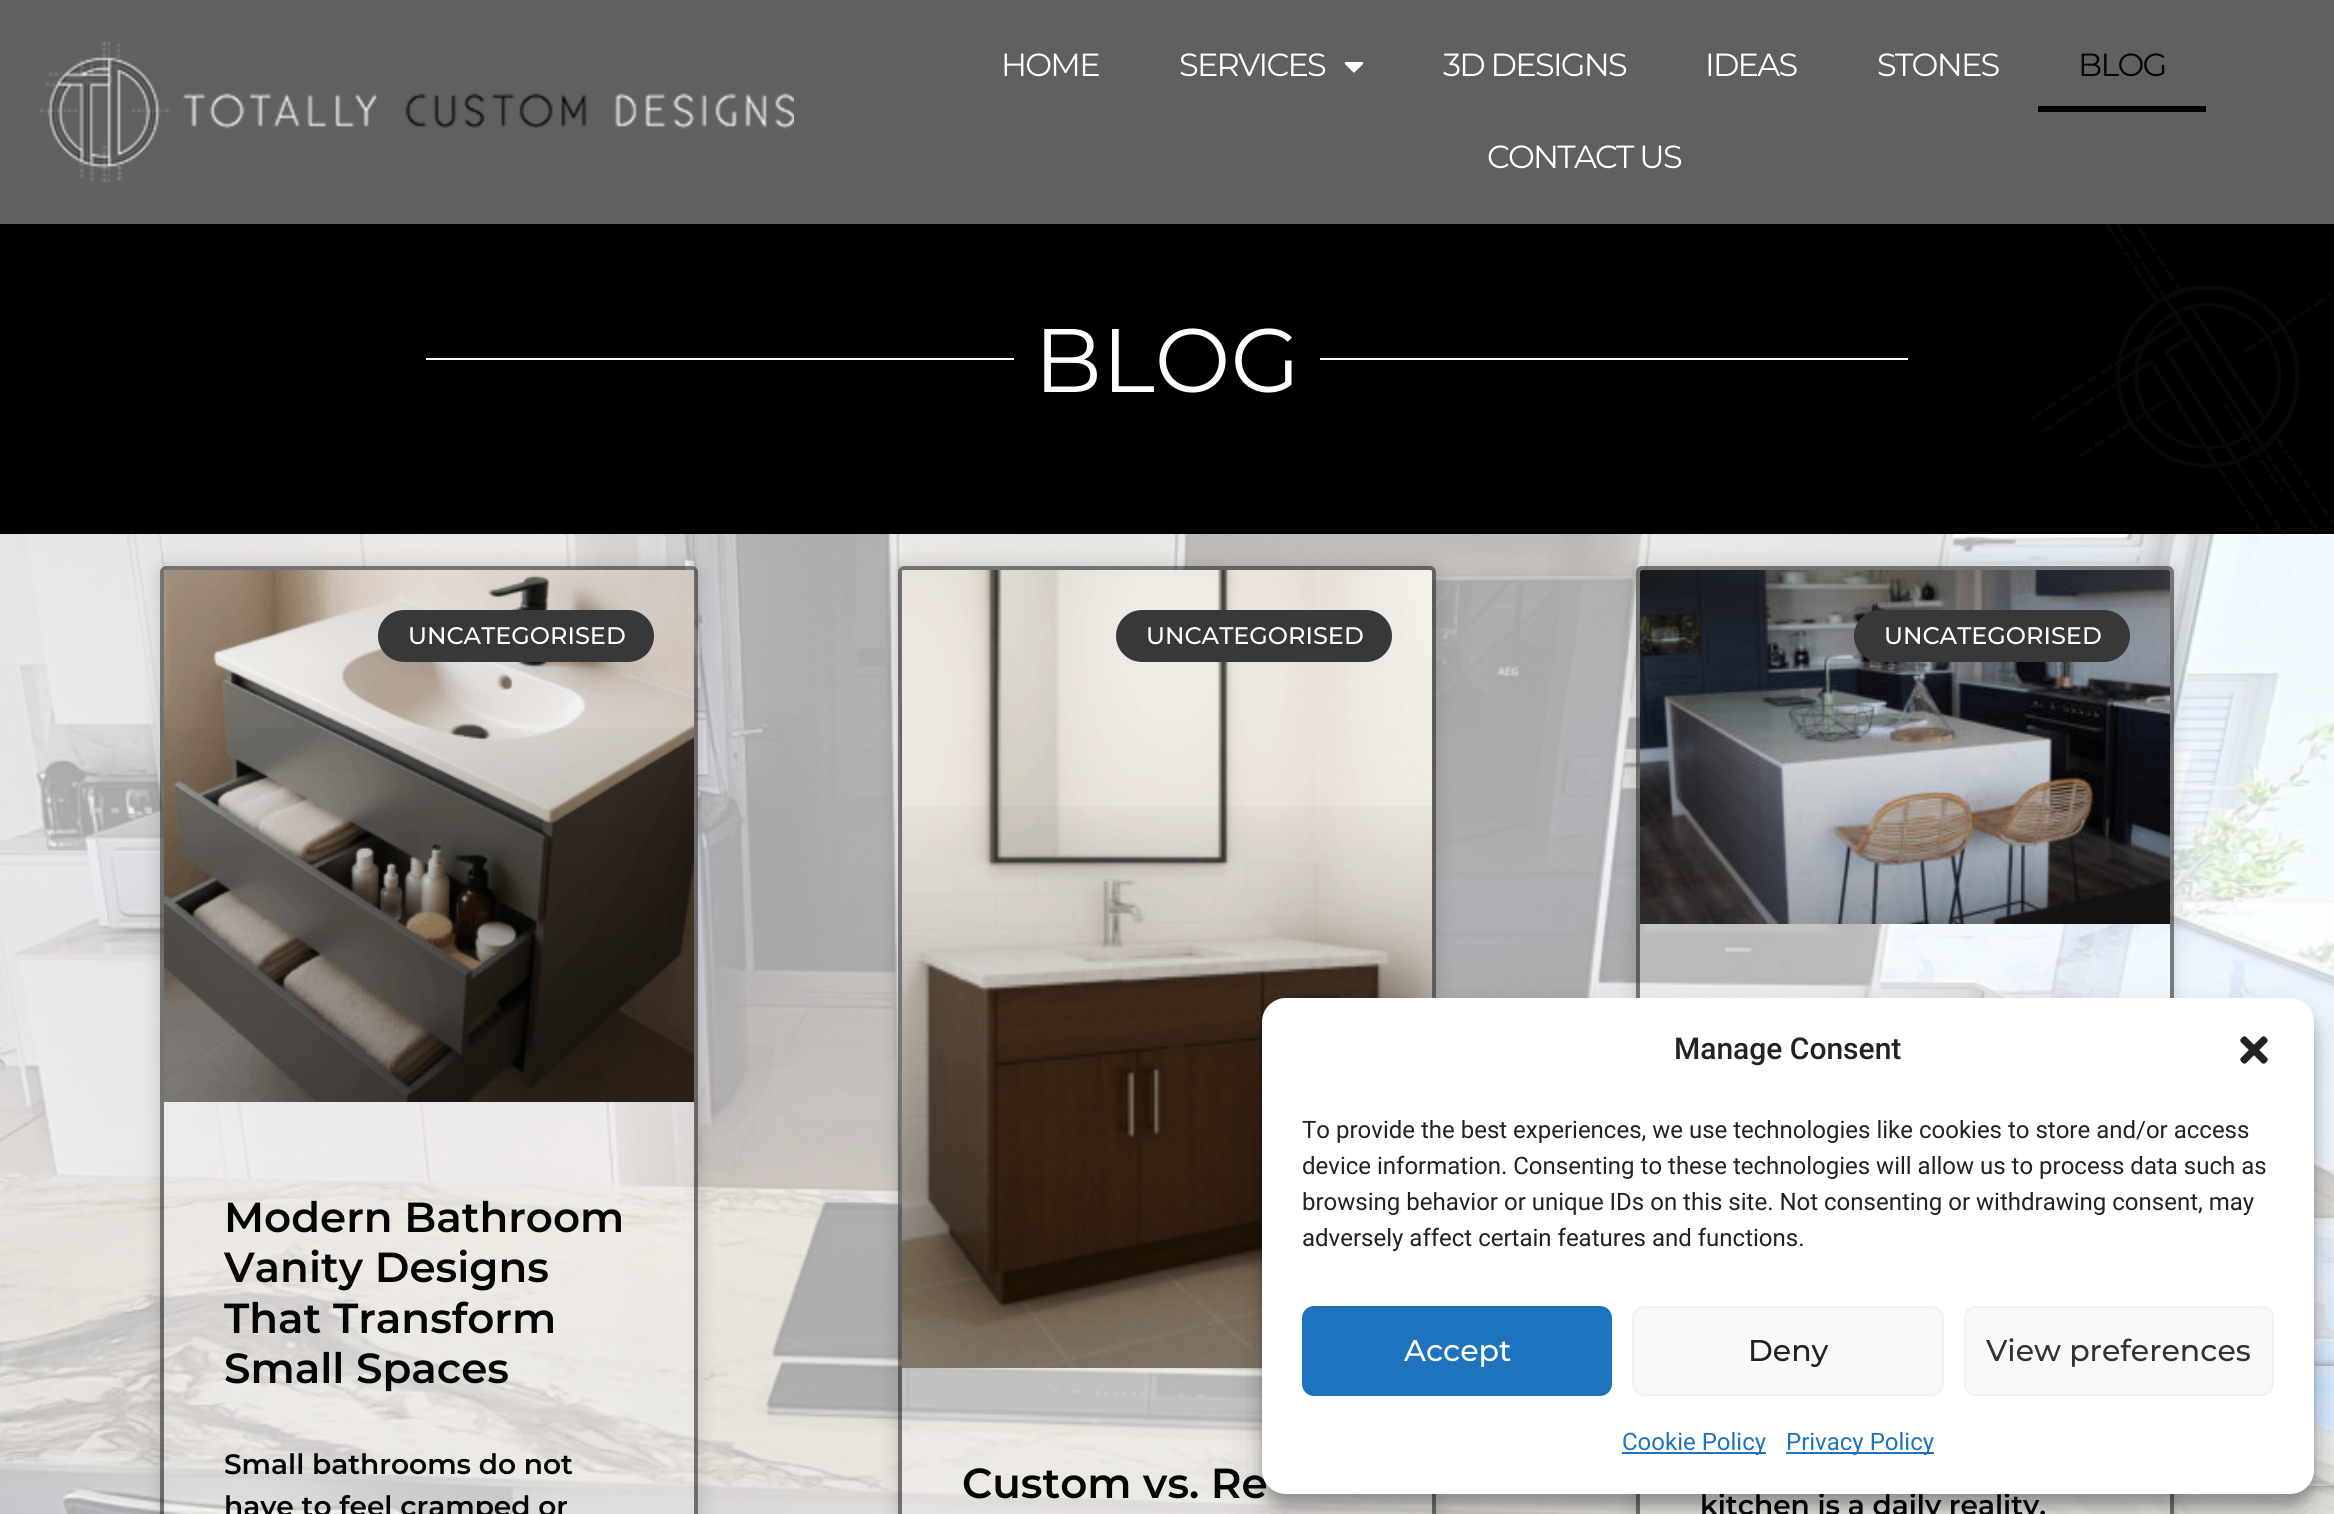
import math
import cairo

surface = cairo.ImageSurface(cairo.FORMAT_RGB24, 2334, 1514)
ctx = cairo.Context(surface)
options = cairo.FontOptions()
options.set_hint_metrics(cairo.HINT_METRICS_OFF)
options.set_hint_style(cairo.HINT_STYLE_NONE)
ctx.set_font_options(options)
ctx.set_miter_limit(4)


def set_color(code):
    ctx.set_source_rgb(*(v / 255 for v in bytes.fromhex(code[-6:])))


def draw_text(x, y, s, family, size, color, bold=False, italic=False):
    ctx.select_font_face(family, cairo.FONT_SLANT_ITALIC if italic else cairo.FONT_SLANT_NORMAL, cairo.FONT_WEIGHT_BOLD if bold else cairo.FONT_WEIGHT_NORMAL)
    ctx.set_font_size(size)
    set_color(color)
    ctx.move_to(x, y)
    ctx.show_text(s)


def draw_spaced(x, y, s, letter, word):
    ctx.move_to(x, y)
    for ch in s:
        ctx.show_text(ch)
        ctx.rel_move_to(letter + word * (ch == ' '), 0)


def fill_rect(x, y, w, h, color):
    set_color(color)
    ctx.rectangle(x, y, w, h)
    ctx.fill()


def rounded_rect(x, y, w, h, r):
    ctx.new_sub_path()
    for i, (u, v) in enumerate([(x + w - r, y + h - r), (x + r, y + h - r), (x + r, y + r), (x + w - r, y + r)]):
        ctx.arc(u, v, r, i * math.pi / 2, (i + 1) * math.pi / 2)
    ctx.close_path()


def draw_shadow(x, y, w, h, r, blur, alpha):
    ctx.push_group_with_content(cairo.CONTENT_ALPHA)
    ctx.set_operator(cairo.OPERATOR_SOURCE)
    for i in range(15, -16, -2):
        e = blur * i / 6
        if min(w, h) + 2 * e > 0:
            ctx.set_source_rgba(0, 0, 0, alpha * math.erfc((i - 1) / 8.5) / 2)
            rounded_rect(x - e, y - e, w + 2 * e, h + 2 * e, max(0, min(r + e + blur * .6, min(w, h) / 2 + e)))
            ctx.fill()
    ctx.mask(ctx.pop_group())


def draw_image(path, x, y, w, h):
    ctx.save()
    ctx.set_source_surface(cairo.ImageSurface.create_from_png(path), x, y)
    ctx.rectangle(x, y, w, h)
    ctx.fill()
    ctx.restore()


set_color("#000000")
ctx.paint()
fill_rect(0, 0, 2334, 224, "#606060")
draw_image("assets/img1.png", 39, 42, 755, 140)
ctx.select_font_face("Montserrat")
ctx.set_font_size(32)
set_color("#ffffff")
draw_spaced(1001, 76, "HOME", -1.75, 0)
draw_spaced(1179, 76, "SERVICES", -1.75, 0)
draw_image("assets/img2.png", 1344, 62, 20, 11)
draw_spaced(1443, 76, "3D DESIGNS", -1.75, 0)
draw_spaced(1705, 76, "IDEAS", -1.75, 0)
draw_spaced(1877, 76, "STONES", -1.75, 0)
set_color("#050505")
draw_spaced(2078, 76, "BLOG", -1.75, 0)
fill_rect(2038, 106, 168, 6, "#000000")
set_color("#ffffff")
draw_spaced(1487, 168, "CONTACT US", -1.75, 0)
fill_rect(426, 358, 588, 2, "#ffffff")
draw_text(1034, 392, "BLOG", "Montserrat", 90, "#ffffff")
fill_rect(1320, 358, 588, 2, "#ffffff")
draw_image("assets/img3.png", 2031, 224, 302, 310)
draw_image("assets/img4.png", 0, 534, 2334, 980)
ctx.save()
ctx.set_fill_rule(cairo.FILL_RULE_EVEN_ODD)
ctx.new_path()
ctx.move_to(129, 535)
ctx.line_to(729, 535)
ctx.line_to(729, 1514)
ctx.line_to(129, 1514)
ctx.close_path()
ctx.move_to(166, 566)
ctx.line_to(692, 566)
ctx.curve_to(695.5, 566, 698, 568.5, 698, 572)
ctx.line_to(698, 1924)
ctx.curve_to(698, 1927.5, 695.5, 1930, 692, 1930)
ctx.line_to(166, 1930)
ctx.curve_to(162.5, 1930, 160, 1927.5, 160, 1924)
ctx.line_to(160, 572)
ctx.curve_to(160, 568.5, 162.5, 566, 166, 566)
ctx.close_path()
ctx.clip()
set_color("#000000")
draw_shadow(160, 566, 538, 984, 6, 10, 0.15)
ctx.restore()
ctx.set_source_rgba(1, 1, 1, 0.17)
rounded_rect(160, 566, 538, 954, 6)
ctx.fill()
rounded_rect(162, 568, 534, 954, 4)
ctx.set_source_rgba(0, 0, 0, 0.51)
ctx.set_line_width(4)
ctx.stroke()
draw_image("assets/img5.png", 164, 570, 530, 532)
gradient = cairo.LinearGradient(429, 1102, 429, 570)
gradient.add_color_stop_rgba(0, 0, 0, 0, 0.35)
gradient.add_color_stop_rgba(0.75, 0, 0, 0, 0)
ctx.set_source(gradient)
ctx.rectangle(164, 728, 530, 374)
ctx.fill()
set_color("#363839")
rounded_rect(378, 610, 276, 52, 26)
ctx.fill()
draw_text(408, 644, "UNCATEGORISED", "Montserrat Medium", 24, "#ffffff")
draw_text(224, 1232, "Modern Bathroom", "Montserrat SemiBold", 42, "#050505")
draw_text(224, 1282, "Vanity Designs", "Montserrat SemiBold", 42, "#050505")
draw_text(224, 1333, "That Transform", "Montserrat SemiBold", 42, "#050505")
draw_text(224, 1383, "Small Spaces", "Montserrat SemiBold", 42, "#050505")
draw_text(224, 1474, "Small bathrooms do not", "Montserrat SemiBold", 28, "#050505")
draw_text(224, 1516, "have to feel cramped or", "Montserrat SemiBold", 28, "#050505")
ctx.save()
ctx.set_fill_rule(cairo.FILL_RULE_EVEN_ODD)
ctx.new_path()
ctx.move_to(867, 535)
ctx.line_to(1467, 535)
ctx.line_to(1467, 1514)
ctx.line_to(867, 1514)
ctx.close_path()
ctx.move_to(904, 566)
ctx.line_to(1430, 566)
ctx.curve_to(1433.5, 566, 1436, 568.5, 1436, 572)
ctx.line_to(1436, 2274)
ctx.curve_to(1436, 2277.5, 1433.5, 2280, 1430, 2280)
ctx.line_to(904, 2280)
ctx.curve_to(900.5, 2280, 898, 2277.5, 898, 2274)
ctx.line_to(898, 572)
ctx.curve_to(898, 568.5, 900.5, 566, 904, 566)
ctx.close_path()
ctx.clip()
set_color("#000000")
draw_shadow(898, 566, 538, 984, 6, 10, 0.15)
ctx.restore()
ctx.set_source_rgba(1, 1, 1, 0.17)
rounded_rect(898, 566, 538, 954, 6)
ctx.fill()
rounded_rect(900, 568, 534, 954, 4)
ctx.set_source_rgba(0, 0, 0, 0.51)
ctx.stroke()
draw_image("assets/img6.png", 902, 570, 530, 798)
gradient = cairo.LinearGradient(1167, 1368, 1167, 570)
gradient.add_color_stop_rgba(0, 0, 0, 0, 0.35)
gradient.add_color_stop_rgba(0.75, 0, 0, 0, 0)
ctx.set_source(gradient)
ctx.rectangle(902, 806, 530, 562)
ctx.fill()
set_color("#363839")
rounded_rect(1116, 610, 276, 52, 26)
ctx.fill()
draw_text(1146, 644, "UNCATEGORISED", "Montserrat Medium", 24, "#ffffff")
draw_text(962, 1498, "Custom vs. Re", "Montserrat SemiBold", 42, "#050505")
ctx.save()
ctx.set_fill_rule(cairo.FILL_RULE_EVEN_ODD)
ctx.new_path()
ctx.move_to(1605, 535)
ctx.line_to(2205, 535)
ctx.line_to(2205, 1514)
ctx.line_to(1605, 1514)
ctx.close_path()
ctx.move_to(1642, 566)
ctx.line_to(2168, 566)
ctx.curve_to(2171.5, 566, 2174, 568.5, 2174, 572)
ctx.line_to(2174, 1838)
ctx.curve_to(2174, 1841.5, 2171.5, 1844, 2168, 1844)
ctx.line_to(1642, 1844)
ctx.curve_to(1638.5, 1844, 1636, 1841.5, 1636, 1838)
ctx.line_to(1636, 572)
ctx.curve_to(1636, 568.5, 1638.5, 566, 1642, 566)
ctx.close_path()
ctx.clip()
set_color("#000000")
draw_shadow(1636, 566, 538, 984, 6, 10, 0.15)
ctx.restore()
ctx.set_source_rgba(1, 1, 1, 0.17)
rounded_rect(1636, 566, 538, 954, 6)
ctx.fill()
rounded_rect(1638, 568, 534, 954, 4)
ctx.set_source_rgba(0, 0, 0, 0.51)
ctx.stroke()
draw_image("assets/img7.png", 1640, 570, 530, 354)
gradient = cairo.LinearGradient(1905, 924, 1905, 570)
gradient.add_color_stop_rgba(0, 0, 0, 0, 0.35)
gradient.add_color_stop_rgba(0.75, 0, 0, 0, 0)
ctx.set_source(gradient)
ctx.rectangle(1640, 675, 530, 249)
ctx.fill()
set_color("#363839")
rounded_rect(1854, 610, 276, 52, 26)
ctx.fill()
draw_text(1884, 644, "UNCATEGORISED", "Montserrat Medium", 24, "#ffffff")
draw_text(1700, 1515, "kitchen is a daily reality.", "Montserrat SemiBold", 28, "#050505")
set_color("#000000")
draw_shadow(1262, 1010, 1052, 496, 24, 6, 0.23)
draw_shadow(1262, 1018, 1052, 496, 24, 20, 0.19)
ctx.save()
ctx.set_fill_rule(cairo.FILL_RULE_EVEN_ODD)
ctx.new_path()
ctx.move_to(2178, 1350)
ctx.line_to(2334, 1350)
ctx.line_to(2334, 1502)
ctx.line_to(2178, 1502)
ctx.close_path()
ctx.move_to(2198, 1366)
ctx.line_to(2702, 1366)
ctx.curve_to(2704, 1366, 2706, 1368, 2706, 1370)
ctx.line_to(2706, 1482)
ctx.curve_to(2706, 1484, 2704, 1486, 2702, 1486)
ctx.line_to(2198, 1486)
ctx.curve_to(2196, 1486, 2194, 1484, 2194, 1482)
ctx.line_to(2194, 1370)
ctx.curve_to(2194, 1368, 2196, 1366, 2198, 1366)
ctx.close_path()
ctx.clip()
set_color("#808080")
draw_shadow(2194, 1366, 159, 120, 4, 5, 1)
ctx.restore()
set_color("#ffffff")
rounded_rect(1262, 998, 1052, 496, 24)
ctx.fill()
draw_text(1674, 1059, "Manage Consent", "Roboto Medium", 30, "#222222")
draw_image("assets/img8.png", 2240, 1036, 28, 28)
draw_text(1302, 1138, "To provide the best experiences, we use technologies like cookies to store and/or access", "Roboto", 24, "#222222")
draw_text(1302, 1174, "device information. Consenting to these technologies will allow us to process data such as", "Roboto", 24, "#222222")
draw_text(1302, 1210, "browsing behavior or unique IDs on this site. Not consenting or withdrawing consent, may", "Roboto", 24, "#222222")
draw_text(1302, 1246, "adversely affect certain features and functions.", "Roboto", 24, "#222222")
set_color("#1e73be")
rounded_rect(1303, 1307, 308, 88, 11)
ctx.fill_preserve()
ctx.set_line_width(2)
ctx.stroke()
draw_text(1404, 1361, "Accept", "Montserrat Medium", 30, "#ffffff")
set_color("#f9f9f9")
rounded_rect(1633, 1307, 310, 88, 11)
ctx.fill_preserve()
set_color("#f2f2f2")
ctx.stroke()
draw_text(1748, 1361, "Deny", "Montserrat Medium", 30, "#222222")
set_color("#f9f9f9")
rounded_rect(1965, 1307, 308, 88, 11)
ctx.fill_preserve()
set_color("#f2f2f2")
ctx.stroke()
draw_text(1986, 1361, "View preferences", "Montserrat Medium", 30, "#333333")
fill_rect(1622, 1452, 144, 2, "#1e73be")
draw_text(1622, 1450, "Cookie Policy", "Roboto", 24, "#1e73be")
fill_rect(1786, 1452, 148, 2, "#1e73be")
draw_text(1786, 1450, "Privacy Policy", "Roboto", 24, "#1e73be")
surface.write_to_png("output.png")
